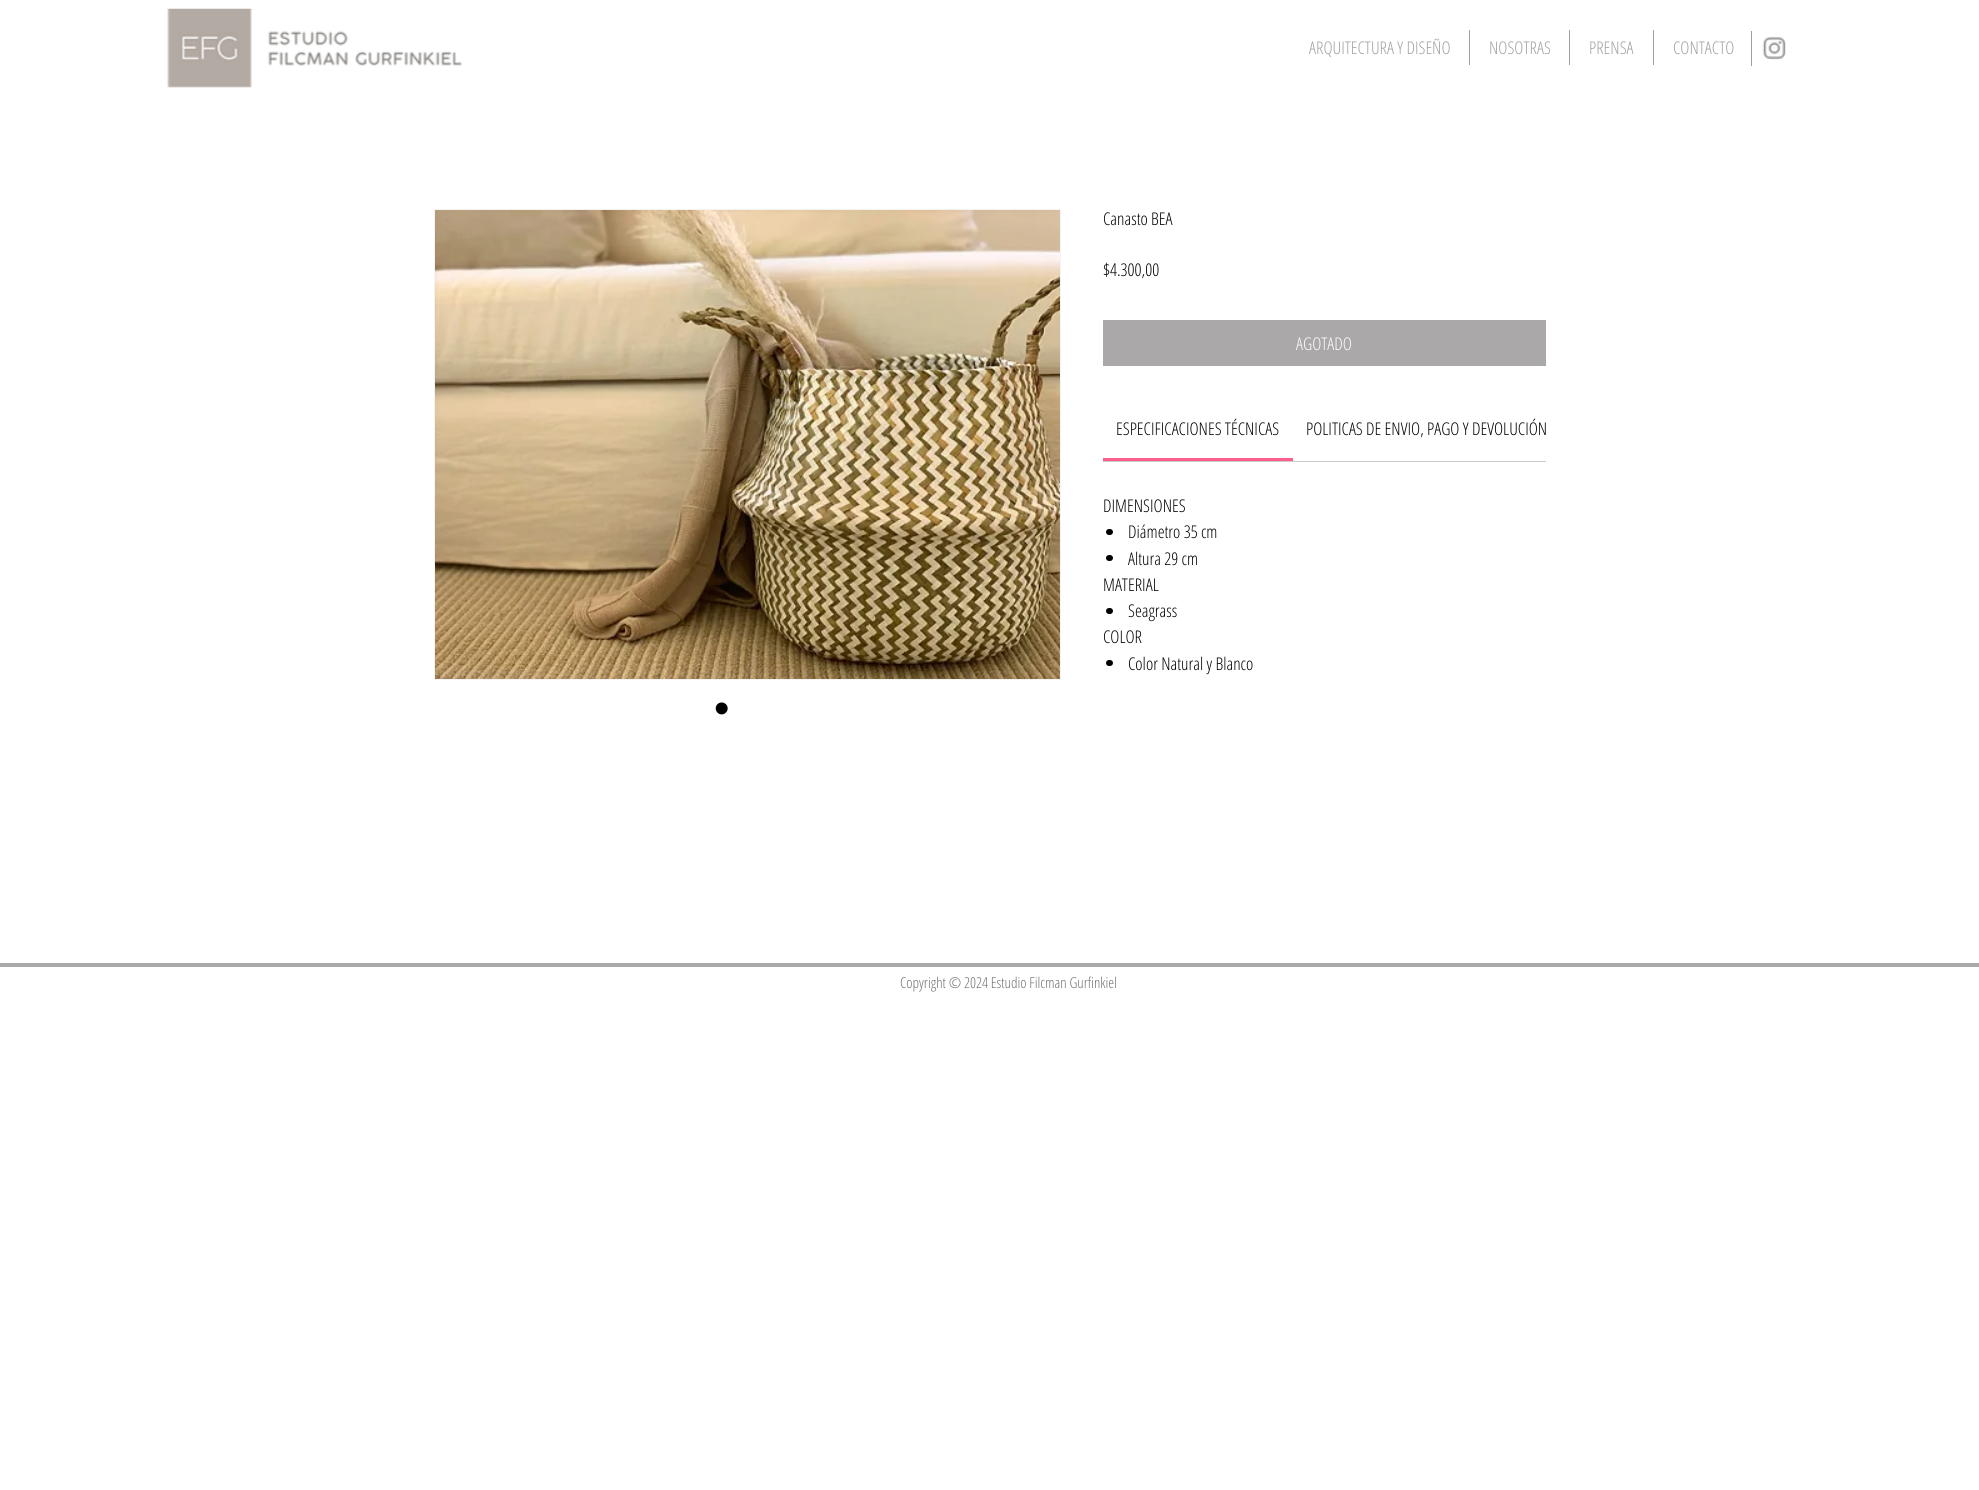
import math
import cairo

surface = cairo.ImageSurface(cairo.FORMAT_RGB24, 1979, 1490)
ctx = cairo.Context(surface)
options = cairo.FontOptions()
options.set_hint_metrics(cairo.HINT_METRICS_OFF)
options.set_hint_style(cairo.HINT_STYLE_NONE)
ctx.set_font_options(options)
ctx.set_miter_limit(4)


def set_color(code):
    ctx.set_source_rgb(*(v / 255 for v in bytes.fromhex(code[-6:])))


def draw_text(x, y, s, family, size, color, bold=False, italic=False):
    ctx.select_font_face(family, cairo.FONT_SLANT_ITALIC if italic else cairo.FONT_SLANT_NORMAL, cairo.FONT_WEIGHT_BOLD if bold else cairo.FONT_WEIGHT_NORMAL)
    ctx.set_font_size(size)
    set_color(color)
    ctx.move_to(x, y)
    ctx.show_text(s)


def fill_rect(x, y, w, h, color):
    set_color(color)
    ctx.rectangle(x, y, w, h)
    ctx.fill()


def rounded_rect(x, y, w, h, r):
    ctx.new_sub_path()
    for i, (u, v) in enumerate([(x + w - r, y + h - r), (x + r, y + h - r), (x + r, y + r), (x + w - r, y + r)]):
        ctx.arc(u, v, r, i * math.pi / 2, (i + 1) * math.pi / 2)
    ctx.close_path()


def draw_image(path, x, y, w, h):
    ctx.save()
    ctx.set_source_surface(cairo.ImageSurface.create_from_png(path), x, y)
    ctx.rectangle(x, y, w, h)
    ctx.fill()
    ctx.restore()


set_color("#ffffff")
ctx.paint()
draw_image("assets/img1.png", 167, 8, 295, 80)
draw_text(1309, 54, "ARQUITECTURA Y DISEÑO", "Open Sans Condensed Light", 17.5, "#a0a09f")
fill_rect(1469, 30, 1, 35, "#a0a09f")
draw_text(1489, 54, "NOSOTRAS", "Open Sans Condensed Light", 17.5, "#a0a09f")
fill_rect(1569, 30, 1, 35, "#a0a09f")
draw_text(1589, 54, "PRENSA", "Open Sans Condensed Light", 17.5, "#a0a09f")
fill_rect(1653, 30, 1, 35, "#a0a09f")
draw_text(1673, 54, "CONTACTO", "Open Sans Condensed Light", 17.5, "#a0a09f")
fill_rect(1751, 31, 1, 35, "#a0a09f")
draw_image("assets/img2.png", 1762, 36, 24, 24)
draw_text(1103, 225, "Canasto BEA", "Open Sans Condensed Light", 17.5, "#000000")
draw_text(1103, 276, "$4.300,00", "Open Sans Condensed Light", 17.5, "#000000")
fill_rect(1103, 320, 443, 46, "#aaa8a8")
draw_text(1296, 350, "AGOTADO", "Open Sans Condensed Light", 17.5, "#ffffff")
fill_rect(1103, 461, 443, 1, "#cccccc")
fill_rect(1103, 458, 190, 3, "#ff5e8b")
draw_text(1116, 435, "ESPECIFICACIONES TÉCNICAS", "Open Sans Condensed Light", 17.5, "#000000")
draw_text(1306, 435, "POLITICAS DE ENVIO, PAGO Y DEVOLUCIÓN", "Open Sans Condensed Light", 17.5, "#000000")
draw_text(1103, 512, "DIMENSIONES", "Open Sans Condensed Light", 17.5, "#000000")
rounded_rect(1106, 529, 7, 6, 3)
ctx.fill()
draw_text(1128, 538, "Diámetro 35 cm", "Open Sans Condensed Light", 17.5, "#000000")
rounded_rect(1106, 555, 7, 6, 3)
ctx.fill()
draw_text(1128, 565, "Altura 29 cm", "Open Sans Condensed Light", 17.5, "#000000")
draw_text(1103, 591, "MATERIAL", "Open Sans Condensed Light", 17.5, "#000000")
rounded_rect(1106, 608, 7, 6, 3)
ctx.fill()
draw_text(1128, 617, "Seagrass", "Open Sans Condensed Light", 17.5, "#000000")
draw_text(1103, 643, "COLOR", "Open Sans Condensed Light", 17.5, "#000000")
rounded_rect(1106, 660, 7, 6, 3)
ctx.fill()
draw_text(1128, 670, "Color Natural y Blanco", "Open Sans Condensed Light", 17.5, "#000000")
ctx.rectangle(434.5, 209.5, 626, 470)
set_color("#f3f3f3")
ctx.set_line_width(1)
ctx.stroke()
draw_image("assets/img3.png", 435, 210, 625, 469)
draw_text(714, 723, "•", "Liberation Sans", 44, "#000000")
fill_rect(0, 963, 1979, 4, "#aaa8a8")
draw_text(900, 988, "Copyright © 2024 Estudio Filcman Gurfinkiel", "Open Sans Condensed Light", 15, "#717070")
surface.write_to_png("output.png")
